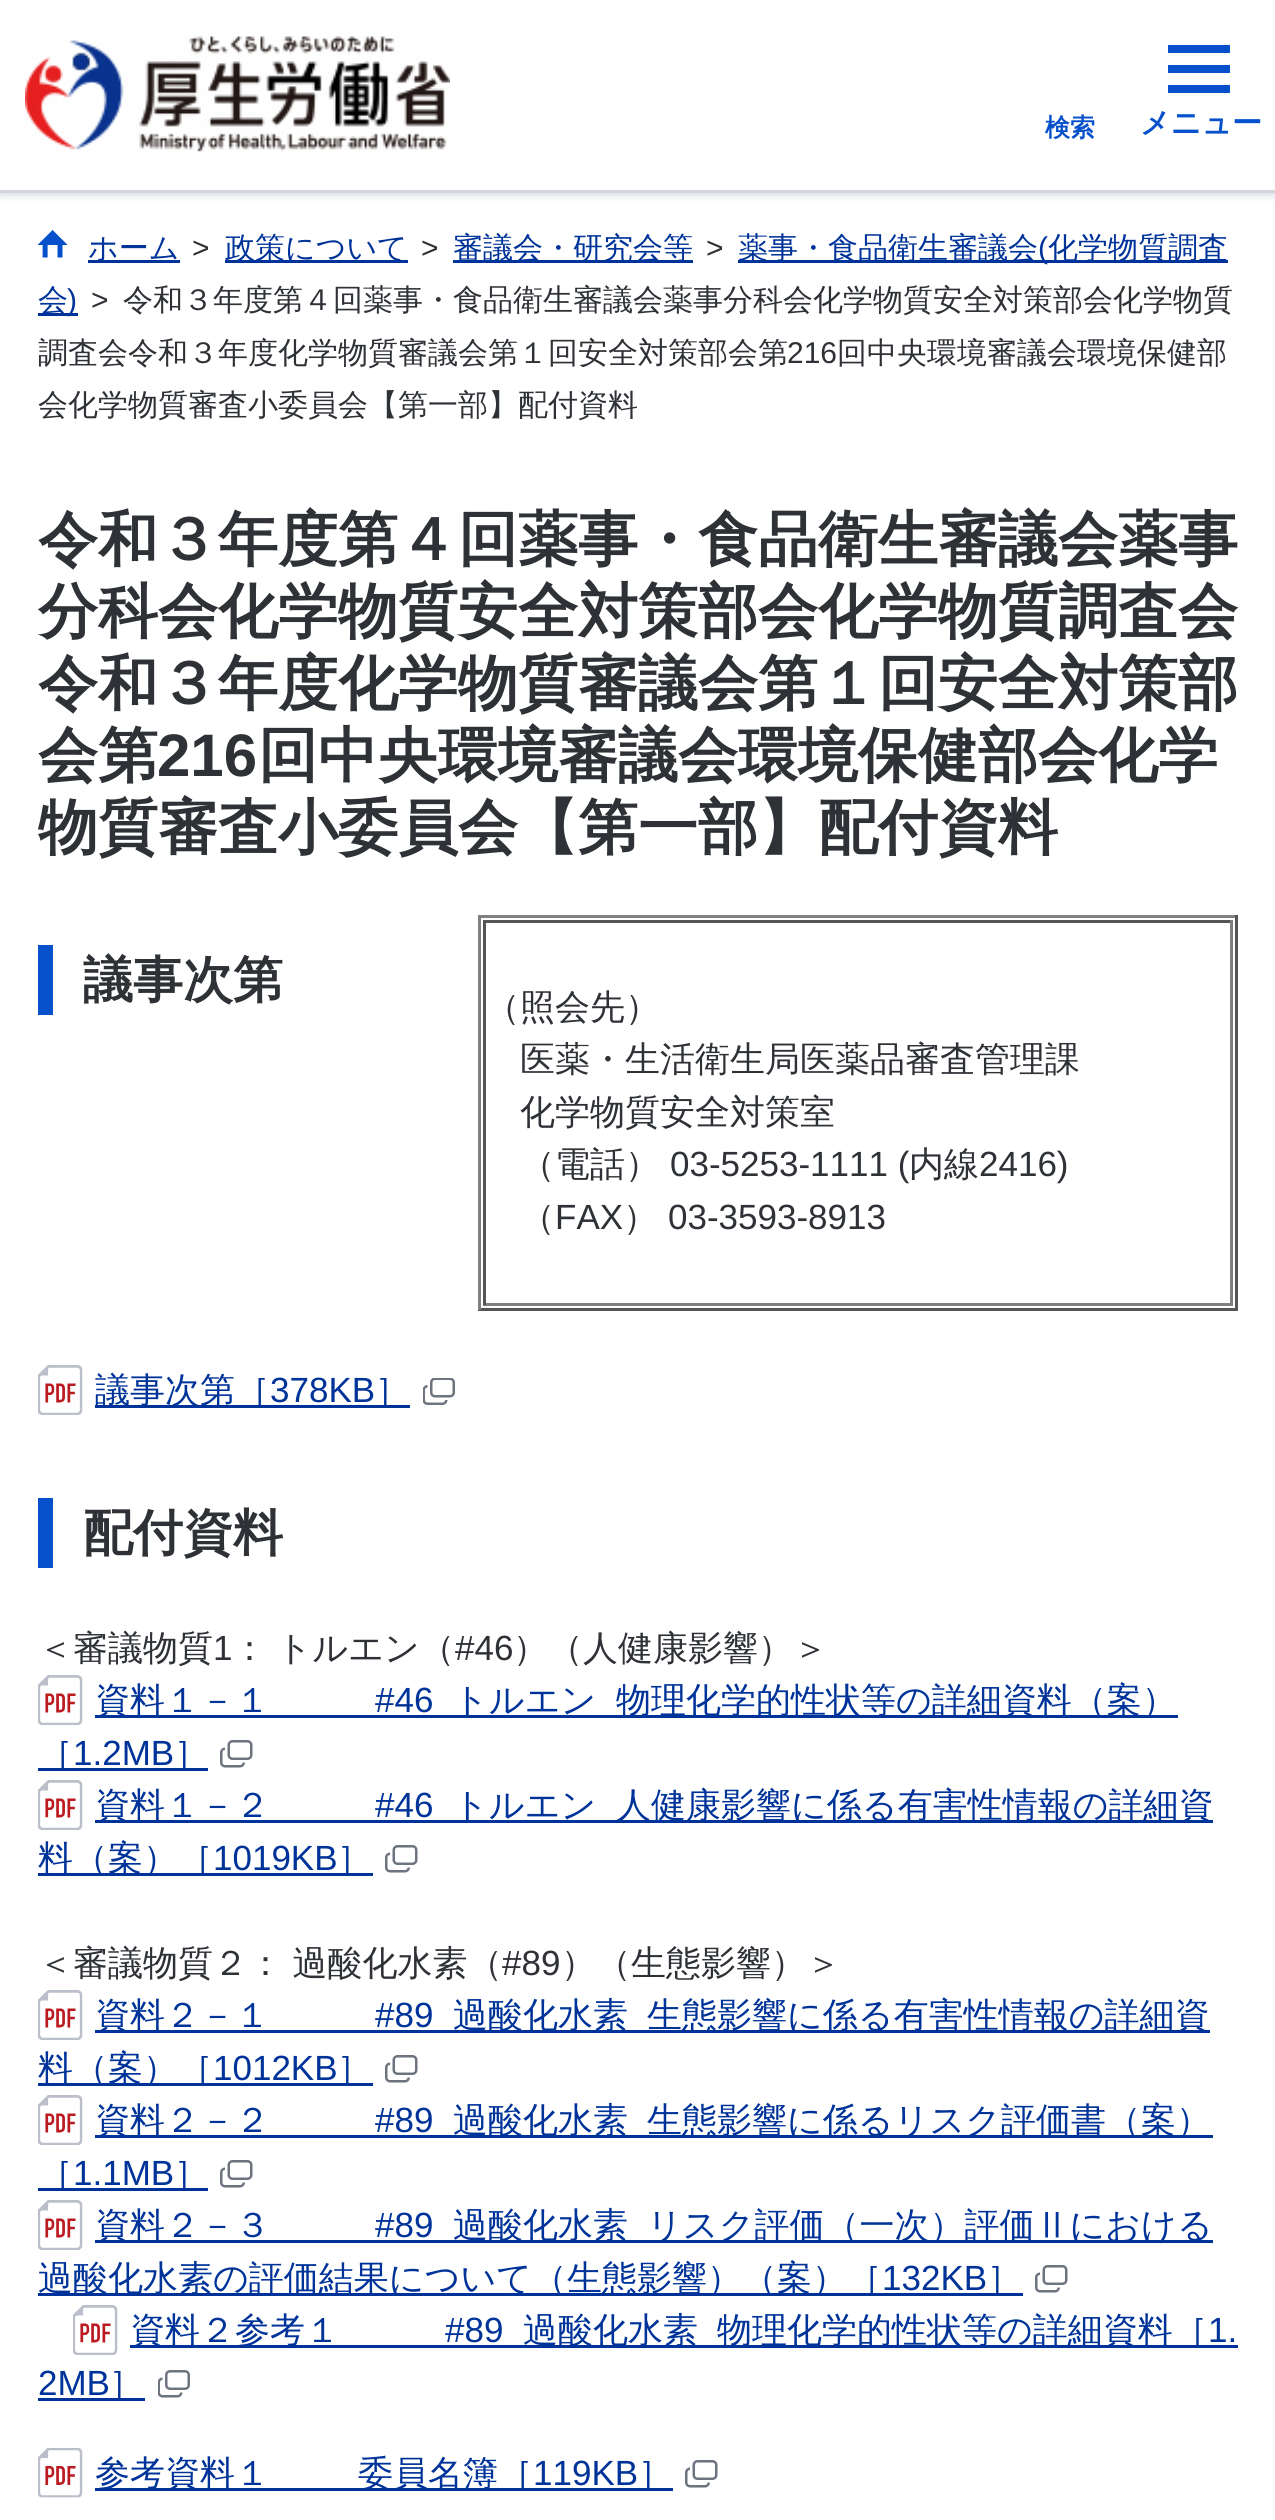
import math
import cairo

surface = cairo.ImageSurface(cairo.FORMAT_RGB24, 1275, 2520)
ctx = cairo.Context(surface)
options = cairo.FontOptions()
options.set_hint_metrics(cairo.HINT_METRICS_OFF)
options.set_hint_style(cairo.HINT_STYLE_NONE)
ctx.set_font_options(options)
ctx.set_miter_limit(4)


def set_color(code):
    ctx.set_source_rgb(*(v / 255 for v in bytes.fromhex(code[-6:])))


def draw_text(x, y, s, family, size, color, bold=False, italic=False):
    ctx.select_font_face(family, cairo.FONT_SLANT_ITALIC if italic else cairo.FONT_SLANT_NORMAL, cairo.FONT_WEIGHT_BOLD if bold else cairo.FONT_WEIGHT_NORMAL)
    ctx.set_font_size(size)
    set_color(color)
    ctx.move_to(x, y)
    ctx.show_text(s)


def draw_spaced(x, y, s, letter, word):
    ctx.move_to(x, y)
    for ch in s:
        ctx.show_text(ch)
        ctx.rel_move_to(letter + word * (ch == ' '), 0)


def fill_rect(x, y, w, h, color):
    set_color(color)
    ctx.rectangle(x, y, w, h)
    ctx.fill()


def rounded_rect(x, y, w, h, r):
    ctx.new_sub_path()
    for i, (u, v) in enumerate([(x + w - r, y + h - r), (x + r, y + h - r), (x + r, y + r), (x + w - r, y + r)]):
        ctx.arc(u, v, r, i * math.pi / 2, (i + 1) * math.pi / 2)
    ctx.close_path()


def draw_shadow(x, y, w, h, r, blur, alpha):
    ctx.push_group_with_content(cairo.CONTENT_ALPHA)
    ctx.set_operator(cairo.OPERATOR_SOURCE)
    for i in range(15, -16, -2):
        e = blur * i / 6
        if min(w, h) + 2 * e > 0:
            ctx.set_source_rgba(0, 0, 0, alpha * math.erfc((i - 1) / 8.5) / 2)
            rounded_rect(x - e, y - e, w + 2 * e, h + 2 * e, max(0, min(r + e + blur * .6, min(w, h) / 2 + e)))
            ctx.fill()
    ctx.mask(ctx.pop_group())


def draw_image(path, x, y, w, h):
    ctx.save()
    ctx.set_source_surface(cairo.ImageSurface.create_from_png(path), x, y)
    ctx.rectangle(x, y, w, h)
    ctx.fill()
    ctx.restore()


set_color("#ffffff")
ctx.paint()
set_color("#d3d6dd")
draw_shadow(0, 3, 1275, 192, 0, 4, 1)
fill_rect(0, 0, 1275, 190, "#ffffff")
fill_rect(0, 190, 1275, 3, "#d3d6dd")
draw_image("assets/img1.png", 25, 36, 425, 116)
draw_text(1045, 136, "検索", "WenQuanYi Zen Hei", 25, "#0650cb", bold=True)
fill_rect(1168, 65, 62, 8, "#0650cb")
fill_rect(1168, 45, 62, 8, "#0650cb")
fill_rect(1168, 85, 62, 8, "#0650cb")
draw_text(1140, 133, "メニュー", "WenQuanYi Zen Hei", 30, "#0650cb", bold=True)
draw_image("assets/img2.png", 38, 230, 30, 28)
fill_rect(88, 260, 92, 3, "#003399")
draw_text(88, 258, "ホーム", "WenQuanYi Zen Hei Medium", 30, "#003399")
draw_text(192, 258, ">", "Liberation Sans", 30, "#2e3136")
fill_rect(225, 260, 183, 3, "#003399")
draw_text(225, 258, "政策について", "WenQuanYi Zen Hei Medium", 30, "#003399")
draw_text(421, 258, ">", "Liberation Sans", 30, "#2e3136")
fill_rect(453, 260, 240, 3, "#003399")
draw_text(453, 258, "審議会・研究会等", "WenQuanYi Zen Hei Medium", 30, "#003399")
draw_text(706, 258, ">", "Liberation Sans", 30, "#2e3136")
fill_rect(738, 260, 490, 3, "#003399")
draw_text(738, 258, "薬事・食品衛生審議会", "WenQuanYi Zen Hei Medium", 30, "#003399")
draw_text(1038, 258, "(", "Liberation Sans", 30, "#003399")
draw_text(1048, 258, "化学物質調査", "WenQuanYi Zen Hei Medium", 30, "#003399")
fill_rect(38, 313, 40, 3, "#003399")
draw_text(38, 310, "会", "WenQuanYi Zen Hei Medium", 30, "#003399")
draw_text(67, 310, ")", "Liberation Sans", 30, "#003399")
draw_text(91, 310, ">", "Liberation Sans", 30, "#2e3136")
draw_text(123, 310, "令和３年度第４回薬事・食品衛生審議会薬事分科会化学物質安全対策部会化学物質", "WenQuanYi Zen Hei Medium", 30, "#2e3136")
draw_text(38, 363, "調査会令和３年度化学物質審議会第１回安全対策部会第", "WenQuanYi Zen Hei Medium", 30, "#2e3136")
draw_text(787, 363, "216", "Liberation Sans", 30, "#2e3136")
draw_text(837, 363, "回中央環境審議会環境保健部", "WenQuanYi Zen Hei Medium", 30, "#2e3136")
draw_text(38, 415, "会化学物質審査小委員会【第一部】配付資料", "WenQuanYi Zen Hei Medium", 30, "#2e3136")
draw_text(38, 560, "令和３年度第４回薬事・食品衛生審議会薬事", "WenQuanYi Zen Hei", 60, "#2e3136", bold=True)
draw_text(38, 632, "分科会化学物質安全対策部会化学物質調査会", "WenQuanYi Zen Hei", 60, "#2e3136", bold=True)
draw_text(38, 704, "令和３年度化学物質審議会第１回安全対策部", "WenQuanYi Zen Hei", 60, "#2e3136", bold=True)
draw_text(38, 776, "会第", "WenQuanYi Zen Hei", 60, "#2e3136", bold=True)
draw_text(157, 776, "216", "Liberation Sans", 60, "#2e3136", bold=True)
draw_text(258, 776, "回中央環境審議会環境保健部会化学", "WenQuanYi Zen Hei", 60, "#2e3136", bold=True)
draw_text(38, 848, "物質審査小委員会【第一部】配付資料", "WenQuanYi Zen Hei", 60, "#2e3136", bold=True)
fill_rect(38, 945, 15, 70, "#0650cb")
draw_text(83, 997, "議事次第", "WenQuanYi Zen Hei", 50, "#2e3136", bold=True)
fill_rect(478, 915, 760, 3, "#808080")
fill_rect(1235, 915, 3, 395, "#555555")
fill_rect(478, 1308, 760, 3, "#555555")
fill_rect(478, 915, 3, 395, "#808080")
fill_rect(483, 920, 750, 3, "#555555")
fill_rect(1230, 920, 3, 385, "#808080")
fill_rect(483, 1303, 750, 3, "#808080")
fill_rect(483, 920, 3, 385, "#555555")
draw_text(485, 1019, "（照会先）", "WenQuanYi Zen Hei Medium", 35, "#2e3136")
draw_text(520, 1071, "医薬・生活衛生局医薬品審査管理課", "WenQuanYi Zen Hei Medium", 35, "#2e3136")
draw_text(520, 1124, "化学物質安全対策室", "WenQuanYi Zen Hei Medium", 35, "#2e3136")
draw_text(520, 1176, "（電話）", "WenQuanYi Zen Hei Medium", 35, "#2e3136")
draw_text(670, 1176, "03-5253-1111 (", "Liberation Sans", 35, "#2e3136")
draw_text(909, 1176, "内線", "WenQuanYi Zen Hei Medium", 35, "#2e3136")
draw_text(979, 1176, "2416)", "Liberation Sans", 35, "#2e3136")
draw_text(520, 1229, "（", "WenQuanYi Zen Hei Medium", 35, "#2e3136")
draw_text(555, 1229, "FAX", "Liberation Sans", 35, "#2e3136")
draw_text(623, 1229, "）", "WenQuanYi Zen Hei Medium", 35, "#2e3136")
draw_text(668, 1229, "03-3593-8913", "Liberation Sans", 35, "#2e3136")
draw_image("assets/img3.png", 38, 1365, 45, 50)
fill_rect(95, 1405, 315, 3, "#003399")
draw_text(95, 1402, "議事次第［", "WenQuanYi Zen Hei Medium", 35, "#003399")
draw_text(270, 1402, "378KB", "Liberation Sans", 35, "#003399")
draw_text(375, 1402, "］", "WenQuanYi Zen Hei Medium", 35, "#003399")
draw_image("assets/img4.png", 423, 1378, 32, 27)
fill_rect(38, 1498, 15, 70, "#0650cb")
draw_text(83, 1550, "配付資料", "WenQuanYi Zen Hei", 50, "#2e3136", bold=True)
draw_text(38, 1660, "＜審議物質", "WenQuanYi Zen Hei Medium", 35, "#2e3136")
draw_text(213, 1660, "1", "Liberation Sans", 35, "#2e3136")
ctx.select_font_face("WenQuanYi Zen Hei Medium")
draw_spaced(232, 1660, "： トルエン（", 0, -1)
draw_text(455, 1660, "#46", "Liberation Sans", 35, "#2e3136")
draw_text(513, 1660, "）（人健康影響）＞", "WenQuanYi Zen Hei Medium", 35, "#2e3136")
draw_image("assets/img3.png", 38, 1675, 45, 50)
fill_rect(95, 1715, 1083, 3, "#003399")
draw_text(95, 1712, "資料１－１", "WenQuanYi Zen Hei Medium", 35, "#003399")
draw_text(375, 1712, "#46", "Liberation Sans", 35, "#003399")
draw_text(453, 1712, "トルエン", "WenQuanYi Zen Hei Medium", 35, "#003399")
draw_text(616, 1712, "物理化学的性状等の詳細資料（案）", "WenQuanYi Zen Hei Medium", 35, "#003399")
fill_rect(38, 1768, 170, 3, "#003399")
draw_text(38, 1765, "［", "WenQuanYi Zen Hei Medium", 35, "#003399")
draw_text(73, 1765, "1.2MB", "Liberation Sans", 35, "#003399")
draw_text(174, 1765, "］", "WenQuanYi Zen Hei Medium", 35, "#003399")
draw_image("assets/img5.png", 220, 1740, 33, 28)
draw_image("assets/img6.png", 38, 1780, 45, 50)
fill_rect(95, 1820, 1118, 3, "#003399")
draw_text(95, 1817, "資料１－２", "WenQuanYi Zen Hei Medium", 35, "#003399")
draw_text(375, 1817, "#46", "Liberation Sans", 35, "#003399")
draw_text(453, 1817, "トルエン", "WenQuanYi Zen Hei Medium", 35, "#003399")
draw_text(616, 1817, "人健康影響に係る有害性情報の詳細資", "WenQuanYi Zen Hei Medium", 35, "#003399")
fill_rect(38, 1873, 335, 3, "#003399")
draw_text(38, 1870, "料（案）［", "WenQuanYi Zen Hei Medium", 35, "#003399")
draw_text(213, 1870, "1019KB", "Liberation Sans", 35, "#003399")
draw_text(337, 1870, "］", "WenQuanYi Zen Hei Medium", 35, "#003399")
draw_image("assets/img5.png", 385, 1845, 33, 28)
set_color("#2e3136")
draw_spaced(38, 1975, "＜審議物質２： 過酸化水素（", 0, -1)
draw_text(502, 1975, "#89", "Liberation Sans", 35, "#2e3136")
draw_text(561, 1975, "）（生態影響）＞", "WenQuanYi Zen Hei Medium", 35, "#2e3136")
draw_image("assets/img3.png", 38, 1990, 45, 50)
fill_rect(95, 2030, 1115, 3, "#003399")
draw_text(95, 2027, "資料２－１", "WenQuanYi Zen Hei Medium", 35, "#003399")
draw_text(375, 2027, "#89", "Liberation Sans", 35, "#003399")
draw_text(453, 2027, "過酸化水素", "WenQuanYi Zen Hei Medium", 35, "#003399")
draw_text(647, 2027, "生態影響に係る有害性情報の詳細資", "WenQuanYi Zen Hei Medium", 35, "#003399")
fill_rect(38, 2083, 335, 3, "#003399")
draw_text(38, 2080, "料（案）［", "WenQuanYi Zen Hei Medium", 35, "#003399")
draw_text(213, 2080, "1012KB", "Liberation Sans", 35, "#003399")
draw_text(337, 2080, "］", "WenQuanYi Zen Hei Medium", 35, "#003399")
draw_image("assets/img5.png", 385, 2055, 33, 28)
draw_image("assets/img3.png", 38, 2095, 45, 50)
fill_rect(95, 2135, 1118, 3, "#003399")
draw_text(95, 2132, "資料２－２", "WenQuanYi Zen Hei Medium", 35, "#003399")
draw_text(375, 2132, "#89", "Liberation Sans", 35, "#003399")
draw_text(453, 2132, "過酸化水素", "WenQuanYi Zen Hei Medium", 35, "#003399")
draw_text(647, 2132, "⽣態影響に係るリスク評価書（案）", "WenQuanYi Zen Hei Medium", 35, "#003399")
fill_rect(38, 2188, 170, 3, "#003399")
draw_text(38, 2185, "［", "WenQuanYi Zen Hei Medium", 35, "#003399")
draw_text(73, 2185, "1.1MB", "Liberation Sans", 35, "#003399")
draw_text(174, 2185, "］", "WenQuanYi Zen Hei Medium", 35, "#003399")
draw_image("assets/img5.png", 220, 2160, 33, 28)
draw_image("assets/img3.png", 38, 2200, 45, 50)
fill_rect(95, 2240, 1118, 3, "#003399")
draw_text(95, 2237, "資料２－３", "WenQuanYi Zen Hei Medium", 35, "#003399")
draw_text(375, 2237, "#89", "Liberation Sans", 35, "#003399")
draw_text(453, 2237, "過酸化水素", "WenQuanYi Zen Hei Medium", 35, "#003399")
draw_text(647, 2237, "リスク評価（一次）評価Ⅱにおける", "WenQuanYi Zen Hei Medium", 35, "#003399")
fill_rect(38, 2293, 985, 3, "#003399")
draw_text(38, 2290, "過酸化水素の評価結果について（生態影響）（案）［", "WenQuanYi Zen Hei Medium", 35, "#003399")
draw_text(882, 2290, "132KB", "Liberation Sans", 35, "#003399")
draw_text(987, 2290, "］", "WenQuanYi Zen Hei Medium", 35, "#003399")
draw_image("assets/img5.png", 1035, 2265, 33, 28)
draw_image("assets/img6.png", 73, 2305, 45, 50)
fill_rect(130, 2345, 1108, 3, "#003399")
draw_text(130, 2342, "資料２参考１", "WenQuanYi Zen Hei Medium", 35, "#003399")
draw_text(445, 2342, "#89", "Liberation Sans", 35, "#003399")
draw_text(523, 2342, "過酸化水素", "WenQuanYi Zen Hei Medium", 35, "#003399")
draw_text(717, 2342, "物理化学的性状等の詳細資料［", "WenQuanYi Zen Hei Medium", 35, "#003399")
draw_text(1208, 2342, "1.", "Liberation Sans", 35, "#003399")
draw_text(38, 2395, "2MB", "Liberation Sans", 35, "#003399")
fill_rect(38, 2398, 107, 3, "#003399")
draw_text(109, 2395, "］", "WenQuanYi Zen Hei Medium", 35, "#003399")
draw_image("assets/img7.png", 158, 2370, 32, 28)
draw_image("assets/img8.png", 38, 2448, 45, 50)
fill_rect(95, 2488, 578, 3, "#003399")
draw_text(95, 2485, "参考資料１", "WenQuanYi Zen Hei Medium", 35, "#003399")
draw_text(358, 2485, "委員名簿［", "WenQuanYi Zen Hei Medium", 35, "#003399")
draw_text(533, 2485, "119KB", "Liberation Sans", 35, "#003399")
draw_text(638, 2485, "］", "WenQuanYi Zen Hei Medium", 35, "#003399")
draw_image("assets/img5.png", 685, 2460, 33, 28)
surface.write_to_png("output.png")
